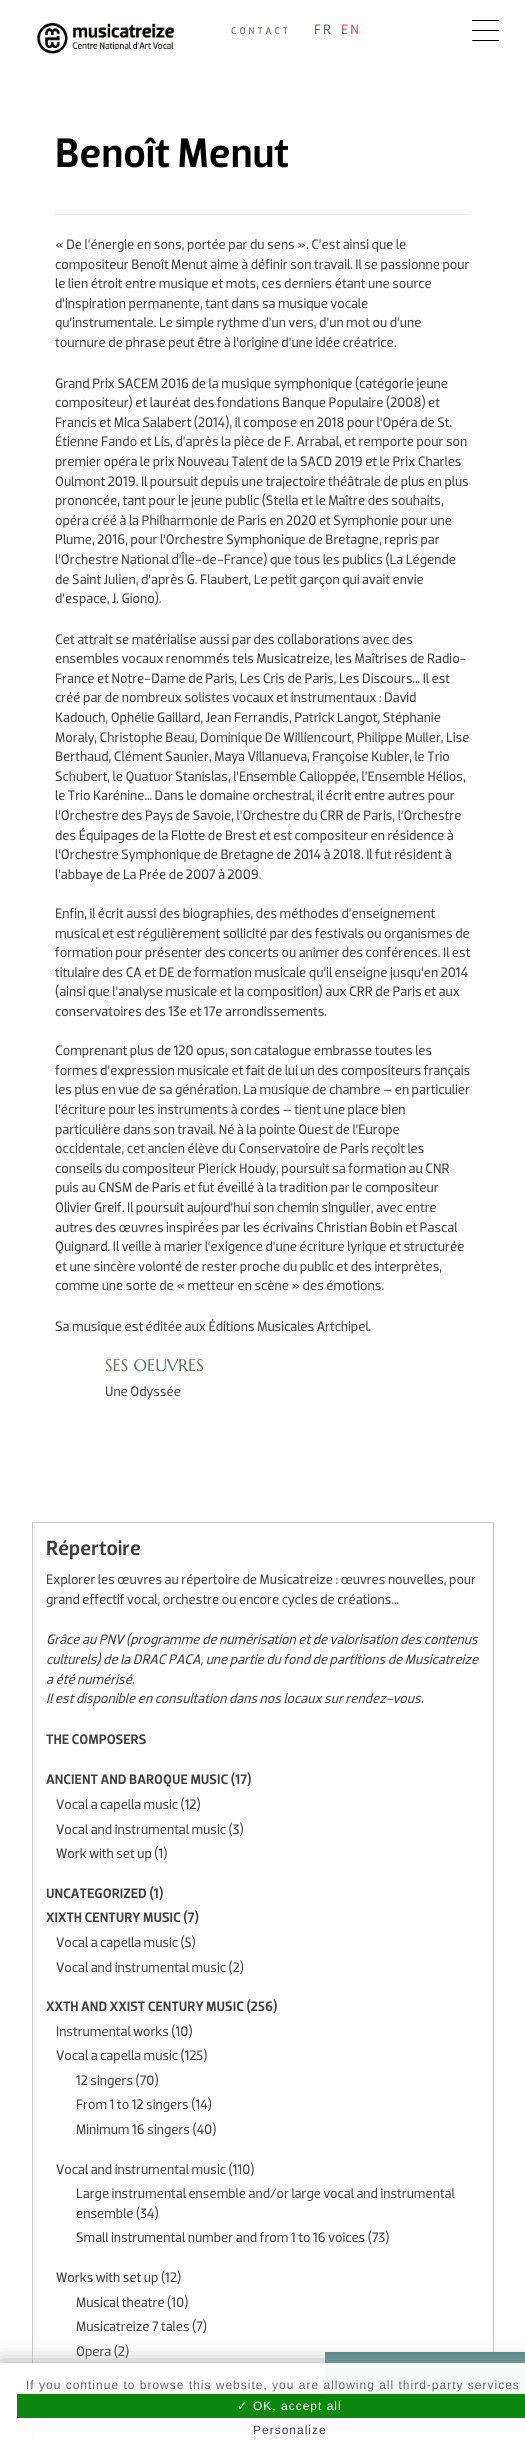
import math
import cairo

surface = cairo.ImageSurface(cairo.FORMAT_RGB24, 525, 2454)
ctx = cairo.Context(surface)
options = cairo.FontOptions()
options.set_hint_metrics(cairo.HINT_METRICS_OFF)
options.set_hint_style(cairo.HINT_STYLE_NONE)
ctx.set_font_options(options)
ctx.set_miter_limit(4)


def set_color(code):
    ctx.set_source_rgb(*(v / 255 for v in bytes.fromhex(code[-6:])))


def draw_text(x, y, s, family, size, color, bold=False, italic=False):
    ctx.select_font_face(family, cairo.FONT_SLANT_ITALIC if italic else cairo.FONT_SLANT_NORMAL, cairo.FONT_WEIGHT_BOLD if bold else cairo.FONT_WEIGHT_NORMAL)
    ctx.set_font_size(size)
    set_color(color)
    ctx.move_to(x, y)
    ctx.show_text(s)


def draw_spaced(x, y, s, letter, word):
    ctx.move_to(x, y)
    for ch in s:
        ctx.show_text(ch)
        ctx.rel_move_to(letter + word * (ch == ' '), 0)


def fill_rect(x, y, w, h, color):
    set_color(color)
    ctx.rectangle(x, y, w, h)
    ctx.fill()


def rounded_rect(x, y, w, h, r):
    ctx.new_sub_path()
    for i, (u, v) in enumerate([(x + w - r, y + h - r), (x + r, y + h - r), (x + r, y + r), (x + w - r, y + r)]):
        ctx.arc(u, v, r, i * math.pi / 2, (i + 1) * math.pi / 2)
    ctx.close_path()


def draw_shadow(x, y, w, h, r, blur, alpha):
    ctx.push_group_with_content(cairo.CONTENT_ALPHA)
    ctx.set_operator(cairo.OPERATOR_SOURCE)
    for i in range(15, -16, -2):
        e = blur * i / 6
        if min(w, h) + 2 * e > 0:
            ctx.set_source_rgba(0, 0, 0, alpha * math.erfc((i - 1) / 8.5) / 2)
            rounded_rect(x - e, y - e, w + 2 * e, h + 2 * e, max(0, min(r + e + blur * .6, min(w, h) / 2 + e)))
            ctx.fill()
    ctx.mask(ctx.pop_group())


def draw_image(path, x, y, w, h):
    ctx.save()
    ctx.set_source_surface(cairo.ImageSurface.create_from_png(path), x, y)
    ctx.rectangle(x, y, w, h)
    ctx.fill()
    ctx.restore()


set_color("#ffffff")
ctx.paint()
draw_image("assets/img1.png", 37, 22, 138, 32)
ctx.select_font_face("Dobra")
ctx.set_font_size(9.75)
set_color("#666c60")
draw_spaced(231, 34, "CONTACT", 3, 0)
ctx.set_font_size(14)
draw_spaced(314, 34, "FR", 2, 0)
set_color("#e24f56")
draw_spaced(341, 34, "EN", 2, 0)
set_color("#000000")
rounded_rect(472, 30, 27, 1, 0.5)
ctx.fill()
rounded_rect(472, 20, 27, 1, 0.5)
ctx.fill()
rounded_rect(472, 40, 27, 1, 0.5)
ctx.fill()
fill_rect(55, 214, 415, 1, "#eeeeee")
draw_text(55, 167, "Benoît Menut", "Dobra Medium", 42, "#000000")
draw_text(55, 249, "« De l’énergie en sons, portée par du sens ». C’est ainsi que le", "Dobra", 14, "#404040")
draw_text(55, 269, "compositeur Benoît Menut aime à définir son travail. Il se passionne pour", "Dobra", 14, "#404040")
draw_text(55, 288, "le lien étroit entre musique et mots, ces derniers étant une source", "Dobra", 14, "#404040")
draw_text(55, 308, "d’inspiration permanente, tant dans sa musique vocale", "Dobra", 14, "#404040")
draw_text(55, 327, "qu’instrumentale. Le simple rythme d’un vers, d’un mot ou d’une", "Dobra", 14, "#404040")
draw_text(55, 347, "tournure de phrase peut être à l’origine d’une idée créatrice.", "Dobra", 14, "#404040")
draw_text(55, 388, "Grand Prix SACEM 2016 de la musique symphonique (catégorie jeune", "Dobra", 14, "#404040")
draw_text(55, 407, "compositeur) et lauréat des fondations Banque Populaire (2008) et", "Dobra", 14, "#404040")
draw_text(55, 427, "Francis et Mica Salabert (2014), il compose en 2018 pour l’Opéra de St.", "Dobra", 14, "#404040")
draw_text(55, 446, "Étienne Fando et Lis, d’après la pièce de F. Arrabal, et remporte pour son", "Dobra", 14, "#404040")
draw_text(55, 466, "premier opéra le prix Nouveau Talent de la SACD 2019 et le Prix Charles", "Dobra", 14, "#404040")
draw_text(55, 486, "Oulmont 2019. Il poursuit depuis une trajectoire théâtrale de plus en plus", "Dobra", 14, "#404040")
draw_text(55, 505, "prononcée, tant pour le jeune public (Stella et le Maître des souhaits,", "Dobra", 14, "#404040")
draw_text(55, 525, "opéra créé à la Philharmonie de Paris en 2020 et Symphonie pour une", "Dobra", 14, "#404040")
draw_text(55, 544, "Plume, 2016, pour l’Orchestre Symphonique de Bretagne, repris par", "Dobra", 14, "#404040")
draw_text(55, 564, "l’Orchestre National d’Île-de-France) que tous les publics (La Légende", "Dobra", 14, "#404040")
draw_text(55, 584, "de Saint Julien, d’après G. Flaubert, Le petit garçon qui avait envie", "Dobra", 14, "#404040")
draw_text(55, 603, "d’espace, J. Giono).", "Dobra", 14, "#404040")
draw_text(55, 644, "Cet attrait se matérialise aussi par des collaborations avec des", "Dobra", 14, "#404040")
draw_text(55, 663, "ensembles vocaux renommés tels Musicatreize, les Maîtrises de Radio-", "Dobra", 14, "#404040")
draw_text(55, 683, "France et Notre-Dame de Paris, Les Cris de Paris, Les Discours… Il est", "Dobra", 14, "#404040")
draw_text(55, 702, "créé par de nombreux solistes vocaux et instrumentaux : David", "Dobra", 14, "#404040")
draw_text(55, 722, "Kadouch, Ophélie Gaillard, Jean Ferrandis, Patrick Langot, Stéphanie", "Dobra", 14, "#404040")
draw_text(55, 742, "Moraly, Christophe Beau, Dominique De Williencourt, Philippe Muller, Lise", "Dobra", 14, "#404040")
draw_text(55, 761, "Berthaud, Clément Saunier, Maya Villanueva, Françoise Kubler, le Trio", "Dobra", 14, "#404040")
draw_text(55, 781, "Schubert, le Quatuor Stanislas, l’Ensemble Calioppée, l’Ensemble Hélios,", "Dobra", 14, "#404040")
draw_text(55, 800, "le Trio Karénine… Dans le domaine orchestral, il écrit entre autres pour", "Dobra", 14, "#404040")
draw_text(55, 820, "l’Orchestre des Pays de Savoie, l’Orchestre du CRR de Paris, l’Orchestre", "Dobra", 14, "#404040")
draw_text(55, 840, "des Équipages de la Flotte de Brest et est compositeur en résidence à", "Dobra", 14, "#404040")
draw_text(55, 859, "l’Orchestre Symphonique de Bretagne de 2014 à 2018. Il fut résident à", "Dobra", 14, "#404040")
draw_text(55, 879, "l’abbaye de La Prée de 2007 à 2009.", "Dobra", 14, "#404040")
draw_text(55, 918, "Enfin, il écrit aussi des biographies, des méthodes d’enseignement", "Dobra", 14, "#404040")
draw_text(55, 938, "musical et est régulièrement sollicité par des festivals ou organismes de", "Dobra", 14, "#404040")
draw_text(55, 957, "formation pour présenter des concerts ou animer des conférences. Il est", "Dobra", 14, "#404040")
draw_text(55, 977, "titulaire des CA et DE de formation musicale qu’il enseigne jusqu’en 2014", "Dobra", 14, "#404040")
draw_text(55, 996, "(ainsi que l’analyse musicale et la composition) aux CRR de Paris et aux", "Dobra", 14, "#404040")
draw_text(55, 1016, "conservatoires des 13e et 17e arrondissements.", "Dobra", 14, "#404040")
draw_text(55, 1055, "Comprenant plus de 120 opus, son catalogue embrasse toutes les", "Dobra", 14, "#404040")
draw_text(55, 1075, "formes d’expression musicale et fait de lui un des compositeurs français", "Dobra", 14, "#404040")
draw_text(55, 1094, "les plus en vue de sa génération. La musique de chambre – en particulier", "Dobra", 14, "#404040")
draw_text(55, 1114, "l’écriture pour les instruments à cordes – tient une place bien", "Dobra", 14, "#404040")
draw_text(55, 1134, "particulière dans son travail. Né à la pointe Ouest de l’Europe", "Dobra", 14, "#404040")
draw_text(55, 1153, "occidentale, cet ancien élève du Conservatoire de Paris reçoit les", "Dobra", 14, "#404040")
draw_text(55, 1173, "conseils du compositeur Pierick Houdy, poursuit sa formation au CNR", "Dobra", 14, "#404040")
draw_text(55, 1192, "puis au CNSM de Paris et fut éveillé à la tradition par le compositeur", "Dobra", 14, "#404040")
draw_text(55, 1212, "Olivier Greif. Il poursuit aujourd’hui son chemin singulier, avec entre", "Dobra", 14, "#404040")
draw_text(55, 1232, "autres des œuvres inspirées par les écrivains Christian Bobin et Pascal", "Dobra", 14, "#404040")
draw_text(55, 1251, "Quignard. Il veille à marier l’exigence d’une écriture lyrique et structurée", "Dobra", 14, "#404040")
draw_text(55, 1271, "et une sincère volonté de rester proche du public et des interprètes,", "Dobra", 14, "#404040")
draw_text(55, 1290, "comme une sorte de « metteur en scène » des émotions.", "Dobra", 14, "#404040")
draw_text(55, 1331, "Sa musique est éditée aux Éditions Musicales Artchipel.", "Dobra", 14, "#404040")
draw_text(105, 1371, "SES OEUVRES", "Marcellus", 16.75, "#5d7565")
draw_text(105, 1396, "Une Odyssée", "Dobra", 14, "#404040")
ctx.rectangle(32.5, 1522.5, 461, 915)
set_color("#cccccc")
ctx.set_line_width(1)
ctx.stroke()
draw_text(46, 1555, "Répertoire", "Dobra Medium", 21, "#404040")
draw_text(46, 1584, "Explorer les œuvres au répertoire de Musicatreize : œuvres nouvelles, pour", "Dobra", 14, "#404040")
draw_text(46, 1604, "grand effectif vocal, orchestre ou encore cycles de créations…", "Dobra", 14, "#404040")
draw_text(46, 1644, "Grâce au PNV (programme de numérisation et de valorisation des contenus", "Dobra", 14, "#404040", italic=True)
draw_text(46, 1664, "culturels) de la DRAC PACA, une partie du fond de partitions de Musicatreize", "Dobra", 14, "#404040", italic=True)
draw_text(46, 1684, "a été numérisé.", "Dobra", 14, "#404040", italic=True)
draw_text(46, 1703, "Il est disponible en consultation dans nos locaux sur rendez-vous.", "Dobra", 14, "#404040", italic=True)
draw_text(46, 1744, "THE COMPOSERS", "Dobra Medium", 14, "#404040")
draw_text(46, 1784, "ANCIENT AND BAROQUE MUSIC (17)", "Dobra Medium", 14, "#404040")
draw_text(56, 1809, "Vocal a capella music (12)", "Dobra", 14, "#404040")
draw_text(56, 1834, "Vocal and instrumental music (3)", "Dobra", 14, "#404040")
draw_text(56, 1858, "Work with set up (1)", "Dobra", 14, "#404040")
draw_text(46, 1898, "UNCATEGORIZED (1)", "Dobra Medium", 14, "#404040")
draw_text(46, 1922, "XIXTH CENTURY MUSIC (7)", "Dobra Medium", 14, "#404040")
draw_text(56, 1947, "Vocal a capella music (5)", "Dobra", 14, "#404040")
draw_text(56, 1972, "Vocal and instrumental music (2)", "Dobra", 14, "#404040")
draw_text(46, 2011, "XXTH AND XXIST CENTURY MUSIC (256)", "Dobra Medium", 14, "#404040")
draw_text(56, 2036, "Instrumental works (10)", "Dobra", 14, "#404040")
draw_text(56, 2060, "Vocal a capella music (125)", "Dobra", 14, "#404040")
draw_text(76, 2085, "12 singers (70)", "Dobra", 14, "#404040")
draw_text(76, 2109, "From 1 to 12 singers (14)", "Dobra", 14, "#404040")
draw_text(76, 2134, "Minimum 16 singers (40)", "Dobra", 14, "#404040")
draw_text(56, 2174, "Vocal and instrumental music (110)", "Dobra", 14, "#404040")
draw_text(76, 2198, "Large instrumental ensemble and/or large vocal and instrumental", "Dobra", 14, "#404040")
draw_text(76, 2218, "ensemble (34)", "Dobra", 14, "#404040")
draw_text(76, 2242, "Small instrumental number and from 1 to 16 voices (73)", "Dobra", 14, "#404040")
draw_text(56, 2282, "Works with set up (12)", "Dobra", 14, "#404040")
draw_text(76, 2307, "Musical theatre (10)", "Dobra", 14, "#404040")
draw_text(76, 2331, "Musicatreize 7 tales (7)", "Dobra", 14, "#404040")
draw_text(76, 2356, "Opera (2)", "Dobra", 14, "#404040")
fill_rect(325, 2352, 200, 42, "#4e8b86")
ctx.save()
ctx.rectangle(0, 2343, 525, 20)
ctx.clip()
set_color("#a1a1a1")
draw_shadow(0, 2363, 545, 91, 0, 10, 0.95)
ctx.restore()
ctx.set_source_rgba(1, 1, 1, 0.95)
ctx.rectangle(32, 2363, 493, 75)
ctx.fill()
ctx.select_font_face("Liberation Sans")
ctx.set_font_size(12)
set_color("#656565")
draw_spaced(26, 2389, "If you continue to browse this website, you are allowing all third-party services", 1, 0)
ctx.set_source_rgba(0, 0.514, 0, 0.95)
ctx.rectangle(17, 2394, 508, 24)
ctx.fill()
ctx.select_font_face("DejaVu Sans")
set_color("#ffffff")
draw_spaced(237, 2410, "✓", 1, 0)
ctx.select_font_face("Liberation Sans")
draw_spaced(253, 2410, "OK, accept all", 1, 0)
set_color("#404040")
draw_spaced(253, 2434, "Personalize", 1, 0)
surface.write_to_png("output.png")
